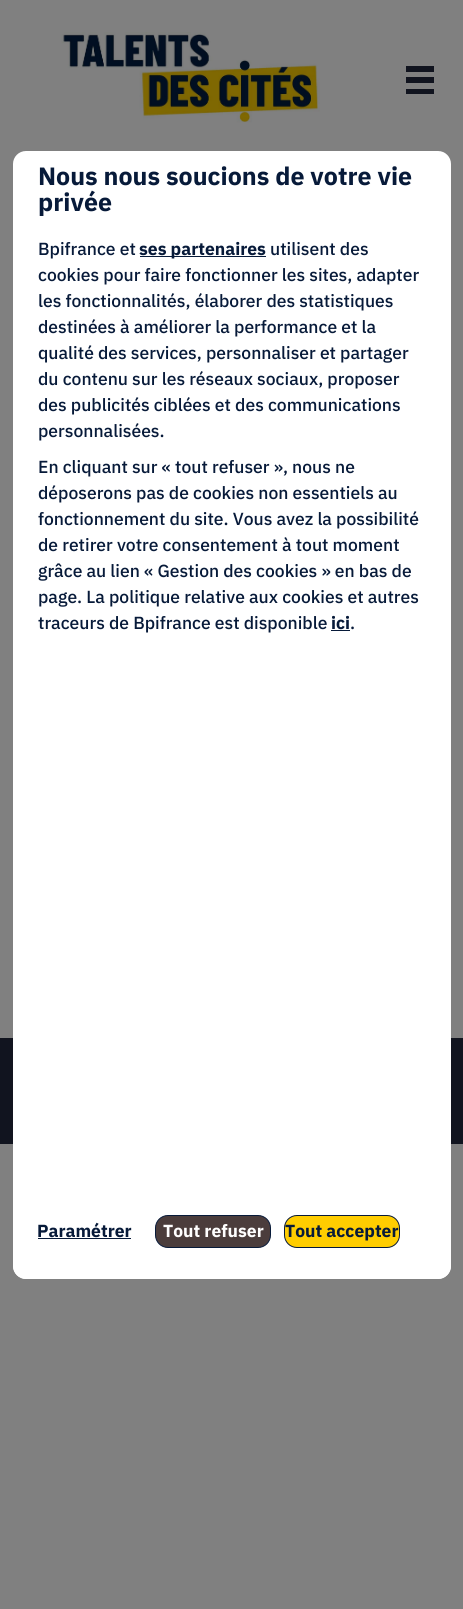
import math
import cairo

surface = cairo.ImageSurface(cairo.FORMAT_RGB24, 463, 1609)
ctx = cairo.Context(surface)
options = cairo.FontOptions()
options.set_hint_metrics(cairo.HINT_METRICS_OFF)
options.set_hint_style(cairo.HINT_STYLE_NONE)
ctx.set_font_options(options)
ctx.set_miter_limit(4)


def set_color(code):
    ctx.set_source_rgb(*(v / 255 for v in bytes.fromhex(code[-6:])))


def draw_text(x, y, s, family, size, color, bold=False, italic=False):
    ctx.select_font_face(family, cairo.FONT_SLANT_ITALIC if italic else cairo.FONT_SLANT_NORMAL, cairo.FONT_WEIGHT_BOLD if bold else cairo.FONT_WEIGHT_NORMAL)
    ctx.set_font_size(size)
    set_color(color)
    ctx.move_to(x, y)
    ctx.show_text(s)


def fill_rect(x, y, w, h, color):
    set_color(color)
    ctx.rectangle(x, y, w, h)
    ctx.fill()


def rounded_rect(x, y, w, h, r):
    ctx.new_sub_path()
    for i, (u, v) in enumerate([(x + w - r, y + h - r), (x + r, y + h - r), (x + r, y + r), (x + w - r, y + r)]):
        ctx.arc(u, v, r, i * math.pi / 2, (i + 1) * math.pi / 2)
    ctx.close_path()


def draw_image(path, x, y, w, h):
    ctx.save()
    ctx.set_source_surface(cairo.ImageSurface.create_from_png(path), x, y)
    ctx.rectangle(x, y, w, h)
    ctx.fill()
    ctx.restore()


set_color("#808080")
ctx.paint()
draw_image("assets/img1.png", 61, 32, 259, 91)
fill_rect(406, 66, 28, 6, "#11141f")
fill_rect(406, 77, 28, 6, "#11141f")
fill_rect(406, 89, 28, 5, "#11141f")
fill_rect(0, 1038, 463, 106, "#11141f")
set_color("#ffffff")
rounded_rect(13, 151, 438, 1128, 13)
ctx.fill()
draw_text(38, 185, "Nous nous soucions de votre vie", "IBM Plex Sans", 25, "#071a39", bold=True)
draw_text(38, 211, "privée", "IBM Plex Sans", 25, "#071a39", bold=True)
draw_text(38, 255, "Bpifrance et", "IBM Plex Sans Medium", 17.5, "#071a39")
fill_rect(140, 256, 126, 1, "#071a39")
draw_text(139, 255, "ses partenaires", "IBM Plex Sans", 17.5, "#071a39", bold=True)
draw_text(270, 255, "utilisent des", "IBM Plex Sans Medium", 17.5, "#071a39")
draw_text(38, 281, "cookies pour faire fonctionner les sites, adapter", "IBM Plex Sans Medium", 17.5, "#071a39")
draw_text(38, 307, "les fonctionnalités, élaborer des statistiques", "IBM Plex Sans Medium", 17.5, "#071a39")
draw_text(38, 333, "destinées à améliorer la performance et la", "IBM Plex Sans Medium", 17.5, "#071a39")
draw_text(38, 359, "qualité des services, personnaliser et partager", "IBM Plex Sans Medium", 17.5, "#071a39")
draw_text(38, 385, "du contenu sur les réseaux sociaux, proposer", "IBM Plex Sans Medium", 17.5, "#071a39")
draw_text(38, 411, "des publicités ciblées et des communications", "IBM Plex Sans Medium", 17.5, "#071a39")
draw_text(38, 437, "personnalisées.", "IBM Plex Sans Medium", 17.5, "#071a39")
draw_text(38, 473, "En cliquant sur « tout refuser », nous ne", "IBM Plex Sans Medium", 17.5, "#071a39")
draw_text(38, 499, "déposerons pas de cookies non essentiels au", "IBM Plex Sans Medium", 17.5, "#071a39")
draw_text(38, 525, "fonctionnement du site. Vous avez la possibilité", "IBM Plex Sans Medium", 17.5, "#071a39")
draw_text(38, 551, "de retirer votre consentement à tout moment", "IBM Plex Sans Medium", 17.5, "#071a39")
draw_text(38, 577, "grâce au lien « Gestion des cookies » en bas de", "IBM Plex Sans Medium", 17.5, "#071a39")
draw_text(38, 603, "page. La politique relative aux cookies et autres", "IBM Plex Sans Medium", 17.5, "#071a39")
draw_text(38, 629, "traceurs de Bpifrance est disponible", "IBM Plex Sans Medium", 17.5, "#071a39")
draw_text(331, 629, "ici", "IBM Plex Sans", 17.5, "#071a39", bold=True)
fill_rect(331, 630, 19, 1, "#071a39")
draw_text(350, 629, ".", "IBM Plex Sans Medium", 17.5, "#071a39")
gradient = cairo.LinearGradient(232, 1279, 232, 1209)
gradient.add_color_stop_rgba(0.6, 1, 1, 1, 1)
gradient.add_color_stop_rgba(1, 1, 1, 1, 0)
ctx.set_source(gradient)
ctx.new_path()
ctx.move_to(13, 1209)
ctx.line_to(451, 1209)
ctx.line_to(451, 1266)
ctx.curve_to(451, 1273, 445, 1279, 438, 1279)
ctx.line_to(26, 1279)
ctx.curve_to(19, 1279, 13, 1273, 13, 1266)
ctx.close_path()
ctx.fill()
draw_text(37, 1237, "Paramétrer", "IBM Plex Sans", 17.5, "#071a39", bold=True)
fill_rect(38, 1238, 93, 1, "#071a39")
set_color("#4b3d3c")
rounded_rect(155.5, 1215.5, 115, 32, 12.5)
ctx.fill_preserve()
set_color("#071a39")
ctx.set_line_width(1)
ctx.stroke()
draw_text(163, 1237, "Tout refuser", "IBM Plex Sans", 17.5, "#ffffff", bold=True)
set_color("#ffcd00")
rounded_rect(284.5, 1215.5, 115, 32, 12.5)
ctx.fill_preserve()
set_color("#071a39")
ctx.stroke()
draw_text(285, 1237, "Tout accepter", "IBM Plex Sans", 17.5, "#071a39", bold=True)
surface.write_to_png("output.png")
